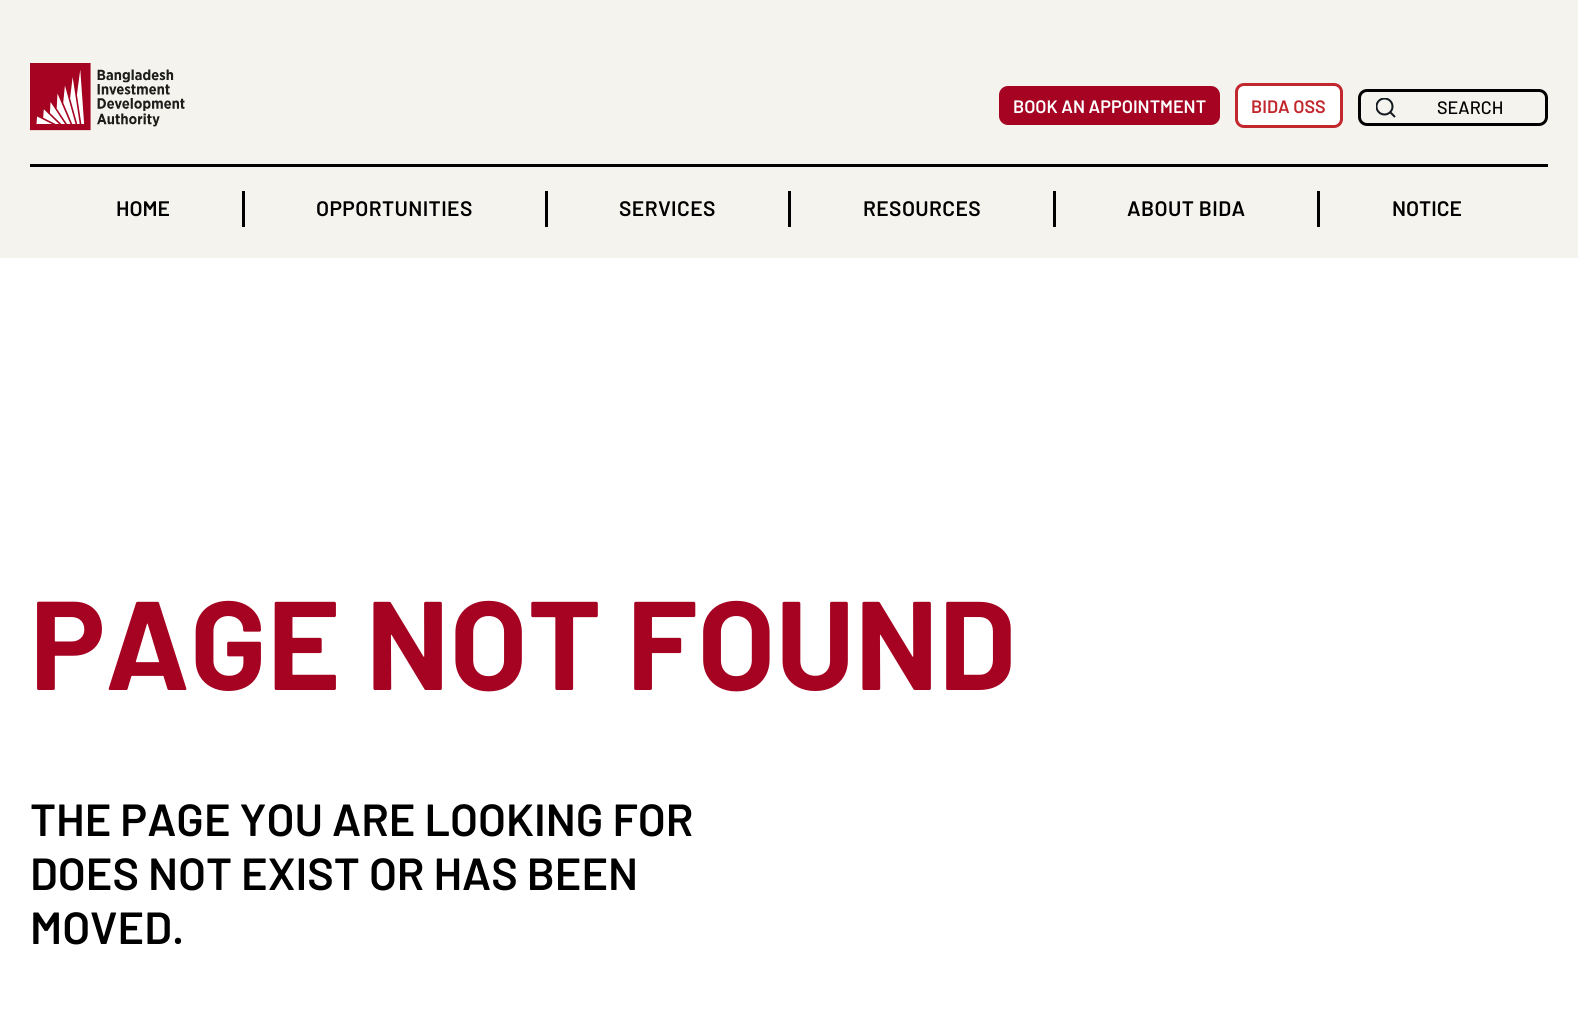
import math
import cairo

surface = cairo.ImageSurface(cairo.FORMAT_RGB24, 1578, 1024)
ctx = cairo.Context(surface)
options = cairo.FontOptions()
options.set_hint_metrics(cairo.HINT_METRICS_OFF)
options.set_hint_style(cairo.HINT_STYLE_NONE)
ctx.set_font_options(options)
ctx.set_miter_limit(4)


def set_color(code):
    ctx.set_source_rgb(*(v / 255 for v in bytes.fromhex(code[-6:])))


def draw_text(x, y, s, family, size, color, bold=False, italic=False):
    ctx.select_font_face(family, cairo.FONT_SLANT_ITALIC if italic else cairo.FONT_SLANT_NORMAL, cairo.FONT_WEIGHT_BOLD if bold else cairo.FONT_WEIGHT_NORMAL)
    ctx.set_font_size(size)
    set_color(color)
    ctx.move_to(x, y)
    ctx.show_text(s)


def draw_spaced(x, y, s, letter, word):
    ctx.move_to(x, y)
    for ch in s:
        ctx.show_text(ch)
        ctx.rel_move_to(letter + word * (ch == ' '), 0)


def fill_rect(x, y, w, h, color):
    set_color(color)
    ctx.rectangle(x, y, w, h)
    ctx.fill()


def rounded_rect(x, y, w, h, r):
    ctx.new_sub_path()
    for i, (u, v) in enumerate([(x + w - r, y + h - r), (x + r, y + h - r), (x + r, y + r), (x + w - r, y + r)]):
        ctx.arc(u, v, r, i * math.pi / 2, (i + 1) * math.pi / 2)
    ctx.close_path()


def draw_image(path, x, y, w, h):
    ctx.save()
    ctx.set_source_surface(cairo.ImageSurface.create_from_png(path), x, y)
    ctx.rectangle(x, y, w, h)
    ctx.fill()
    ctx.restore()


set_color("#ffffff")
ctx.paint()
fill_rect(0, 0, 1578, 258, "#f4f3ed")
draw_image("assets/img1.png", 30, 63, 155, 68)
set_color("#a50321")
rounded_rect(999, 86, 221, 39, 9)
ctx.fill()
draw_text(1013, 113, "BOOK AN APPOINTMENT", "Barlow SemiBold", 18, "#ffffff")
rounded_rect(1236.5, 84.5, 105, 42, 7.5)
ctx.fill_preserve()
set_color("#c1272d")
ctx.set_line_width(3)
ctx.stroke()
draw_text(1251, 113, "BIDA OSS", "Barlow SemiBold", 18, "#c1272d")
rounded_rect(1359.5, 90.5, 187, 34, 7.5)
set_color("#000000")
ctx.stroke()
ctx.save()
ctx.rectangle(1376, 98, 21, 21)
ctx.clip()
ctx.arc(1384.5, 106.5, 8, 0, 2 * math.pi)
set_color("#111820")
ctx.set_line_width(2)
ctx.stroke()
ctx.restore()
ctx.new_path()
ctx.move_to(1390, 112)
ctx.line_to(1395, 117)
set_color("#111820")
ctx.set_line_width(2)
ctx.stroke()
draw_text(1437, 114, "SEARCH", "Barlow Medium", 18, "#000000")
fill_rect(30, 164, 1518, 3, "#000000")
draw_text(116, 216, "HOME", "Barlow SemiBold", 21, "#000000")
fill_rect(242, 191, 3, 36, "#000000")
draw_spaced(316, 216, "OPPORTUNITIES", 0.4, 0)
fill_rect(545, 191, 3, 36, "#000000")
draw_spaced(619, 216, "SERVICES", 0.4, 0)
fill_rect(788, 191, 3, 36, "#000000")
draw_spaced(863, 216, "RESOURCES", 0.4, 0)
fill_rect(1053, 191, 3, 36, "#000000")
draw_spaced(1127, 216, "ABOUT BIDA", 0.4, 0)
fill_rect(1317, 191, 3, 36, "#000000")
draw_text(1392, 216, "NOTICE", "Barlow SemiBold", 21, "#000000")
draw_text(30, 690, "PAGE NOT FOUND", "Barlow", 126, "#a50321", bold=True)
draw_text(30, 836, "THE PAGE YOU ARE LOOKING FOR", "Barlow SemiBold", 45, "#000000")
draw_text(30, 890, "DOES NOT EXIST OR HAS BEEN", "Barlow SemiBold", 45, "#000000")
draw_text(30, 944, "MOVED.", "Barlow SemiBold", 45, "#000000")
surface.write_to_png("output.png")
